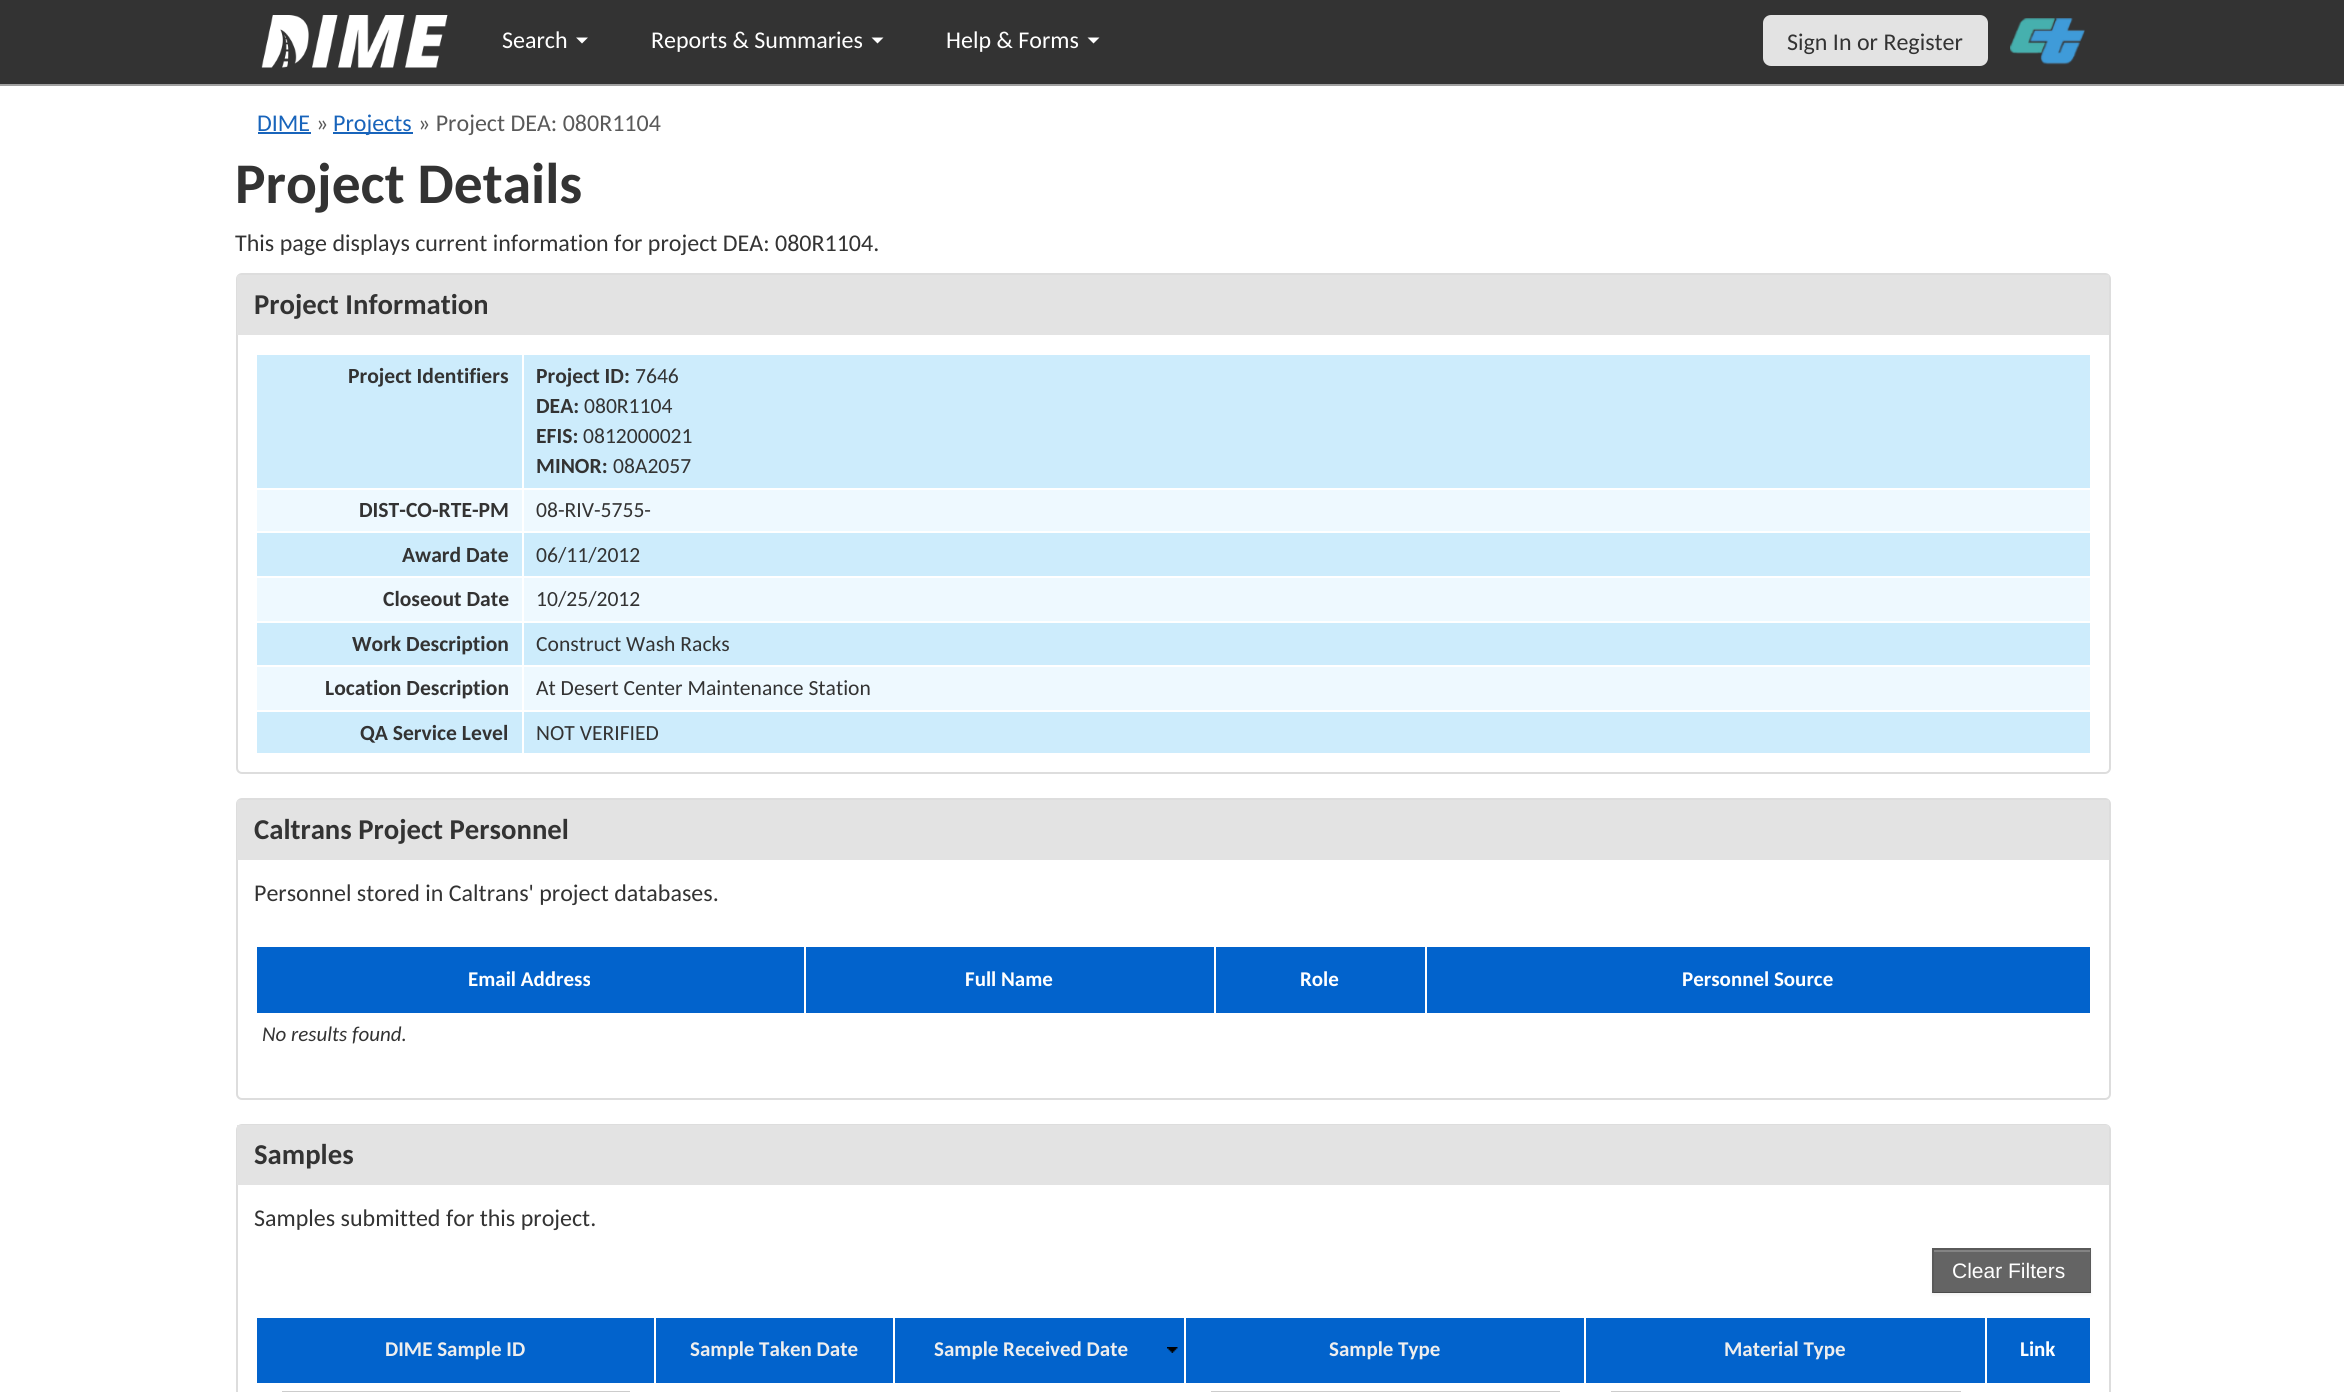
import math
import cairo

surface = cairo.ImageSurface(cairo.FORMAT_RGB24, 2344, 1392)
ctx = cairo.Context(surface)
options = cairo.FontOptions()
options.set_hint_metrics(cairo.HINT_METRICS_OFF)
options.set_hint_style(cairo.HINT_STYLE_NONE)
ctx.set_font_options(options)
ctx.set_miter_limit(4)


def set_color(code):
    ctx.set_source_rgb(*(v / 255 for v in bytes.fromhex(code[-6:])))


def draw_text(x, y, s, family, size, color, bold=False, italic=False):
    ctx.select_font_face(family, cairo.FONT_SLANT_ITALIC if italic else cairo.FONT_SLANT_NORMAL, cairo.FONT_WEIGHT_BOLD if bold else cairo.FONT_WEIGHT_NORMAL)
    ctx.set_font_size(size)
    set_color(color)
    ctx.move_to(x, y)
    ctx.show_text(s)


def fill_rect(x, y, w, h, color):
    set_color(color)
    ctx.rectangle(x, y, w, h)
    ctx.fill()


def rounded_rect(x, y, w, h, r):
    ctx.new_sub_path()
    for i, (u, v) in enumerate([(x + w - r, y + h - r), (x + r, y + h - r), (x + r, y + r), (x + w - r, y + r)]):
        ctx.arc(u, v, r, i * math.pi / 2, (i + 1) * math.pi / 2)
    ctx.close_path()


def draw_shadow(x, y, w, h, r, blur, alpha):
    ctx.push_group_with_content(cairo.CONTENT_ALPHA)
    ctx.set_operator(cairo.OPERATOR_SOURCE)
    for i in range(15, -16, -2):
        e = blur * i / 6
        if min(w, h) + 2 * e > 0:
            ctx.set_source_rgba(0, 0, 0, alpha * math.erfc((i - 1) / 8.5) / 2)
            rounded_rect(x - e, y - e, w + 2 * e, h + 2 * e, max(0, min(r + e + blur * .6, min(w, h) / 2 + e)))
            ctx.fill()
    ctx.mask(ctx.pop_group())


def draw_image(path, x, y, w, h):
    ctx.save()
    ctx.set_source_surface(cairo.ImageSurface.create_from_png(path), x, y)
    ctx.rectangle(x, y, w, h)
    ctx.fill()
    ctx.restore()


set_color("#ffffff")
ctx.paint()
fill_rect(0, 0, 2344, 84, "#333333")
fill_rect(0, 84, 2344, 2, "#a0a0a0")
draw_image("assets/img1.png", 261, 15, 187, 53)
draw_text(502, 48, "Search", "Carlito", 24, "#ffffff")
ctx.new_path()
ctx.move_to(576, 37.5)
ctx.line_to(588, 37.5)
ctx.line_to(582, 43.5)
ctx.close_path()
ctx.fill()
draw_text(651, 48, "Reports & Summaries", "Carlito", 24, "#ffffff")
ctx.new_path()
ctx.move_to(871.5, 37.5)
ctx.line_to(883.5, 37.5)
ctx.line_to(877.5, 43.5)
ctx.close_path()
ctx.fill()
draw_text(946, 48, "Help & Forms", "Carlito", 24, "#ffffff")
ctx.new_path()
ctx.move_to(1087.5, 37.5)
ctx.line_to(1099.5, 37.5)
ctx.line_to(1093.5, 43.5)
ctx.close_path()
ctx.fill()
set_color("#e3e3e3")
rounded_rect(1763, 15, 225, 51, 8)
ctx.fill()
draw_text(1787, 50, "Sign In or Register", "Carlito", 24, "#333333")
draw_image("assets/img2.png", 2010, 18, 75, 47)
draw_text(257, 131, "DIME", "Carlito", 24, "#1864bb")
fill_rect(258, 132, 53, 2, "#1864bb")
draw_text(316, 131, "»", "Carlito", 24, "#595959")
fill_rect(333, 132, 80, 2, "#1864bb")
draw_text(333, 131, "Projects", "Carlito", 24, "#1864bb")
draw_text(418, 131, "» Project DEA: 080R1104", "Carlito", 24, "#595959")
draw_text(235, 203, "Project Details", "Carlito", 57.5, "#333333", bold=True)
draw_text(235, 251, "This page displays current information for project DEA: 080R1104.", "Carlito", 24, "#333333")
rounded_rect(237, 274, 1873, 499, 5)
set_color("#dddddd")
ctx.stroke()
fill_rect(237, 275, 1872, 60, "#e3e3e3")
draw_text(254, 314, "Project Information", "Carlito", 28.75, "#333333", bold=True)
fill_rect(257, 355, 1833, 133, "#cdecfc")
draw_text(348, 383, "Project Identifiers", "Carlito", 21.6, "#333333", bold=True)
draw_text(536, 383, "Project ID:", "Carlito", 21.6, "#333333", bold=True)
draw_text(635, 383, "7646", "Carlito", 21.6, "#333333")
draw_text(536, 413, "DEA:", "Carlito", 21.6, "#333333", bold=True)
draw_text(584, 413, "080R1104", "Carlito", 21.6, "#333333")
draw_text(536, 443, "EFIS:", "Carlito", 21.6, "#333333", bold=True)
draw_text(583, 443, "0812000021", "Carlito", 21.6, "#333333")
draw_text(536, 473, "MINOR:", "Carlito", 21.6, "#333333", bold=True)
draw_text(613, 473, "08A2057", "Carlito", 21.6, "#333333")
fill_rect(257, 490, 1833, 41, "#eef9ff")
draw_text(359, 517, "DIST-CO-RTE-PM", "Carlito", 21.6, "#333333", bold=True)
draw_text(536, 517, "08-RIV-5755-", "Carlito", 21.6, "#333333")
fill_rect(257, 533, 1833, 43, "#cdecfc")
draw_text(402, 562, "Award Date", "Carlito", 21.6, "#333333", bold=True)
draw_text(536, 562, "06/11/2012", "Carlito", 21.6, "#333333")
fill_rect(257, 578, 1833, 43, "#eef9ff")
draw_text(383, 606, "Closeout Date", "Carlito", 21.6, "#333333", bold=True)
draw_text(536, 606, "10/25/2012", "Carlito", 21.6, "#333333")
fill_rect(257, 623, 1833, 42, "#cdecfc")
draw_text(352, 651, "Work Description", "Carlito", 21.6, "#333333", bold=True)
draw_text(536, 651, "Construct Wash Racks", "Carlito", 21.6, "#333333")
fill_rect(257, 667, 1833, 43, "#eef9ff")
draw_text(325, 695, "Location Description", "Carlito", 21.6, "#333333", bold=True)
draw_text(536, 695, "At Desert Center Maintenance Station", "Carlito", 21.6, "#333333")
fill_rect(257, 712, 1833, 41, "#cdecfc")
draw_text(360, 740, "QA Service Level", "Carlito", 21.6, "#333333", bold=True)
fill_rect(522, 353, 2, 402, "#ffffff")
draw_text(536, 740, "NOT VERIFIED", "Carlito", 21.6, "#333333")
rounded_rect(237, 799, 1873, 300, 5)
set_color("#dddddd")
ctx.stroke()
fill_rect(237, 800, 1872, 60, "#e3e3e3")
draw_text(254, 839, "Caltrans Project Personnel", "Carlito", 28.75, "#333333", bold=True)
draw_text(254, 901, "Personnel stored in Caltrans' project databases.", "Carlito", 24, "#333333")
fill_rect(257, 947, 547, 66, "#0263cc")
draw_text(468, 986, "Email Address", "Carlito", 21, "#ffffff", bold=True)
fill_rect(806, 947, 408, 66, "#0263cc")
draw_text(965, 986, "Full Name", "Carlito", 21, "#ffffff", bold=True)
fill_rect(1216, 947, 209, 66, "#0263cc")
draw_text(1300, 986, "Role", "Carlito", 21, "#ffffff", bold=True)
fill_rect(1427, 947, 663, 66, "#0263cc")
draw_text(1682, 986, "Personnel Source", "Carlito", 21, "#ffffff", bold=True)
draw_text(262, 1041, "No results found.", "Carlito", 21, "#333333", italic=True)
rounded_rect(237, 1125, 1873, 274, 5)
set_color("#dddddd")
ctx.stroke()
fill_rect(237, 1125, 1872, 60, "#e3e3e3")
draw_text(254, 1164, "Samples", "Carlito", 28.75, "#333333", bold=True)
draw_text(254, 1226, "Samples submitted for this project.", "Carlito", 24, "#333333")
set_color("#000000")
draw_shadow(1932, 1250, 159, 45, 0, 1.5, 0.05)
fill_rect(1932, 1248, 159, 45, "#646464")
fill_rect(1934, 1250, 156, 2, "#838383")
set_color("#5a5a5a")
ctx.new_path()
ctx.move_to(1932, 1248)
ctx.line_to(2091, 1248)
ctx.line_to(2090, 1250)
ctx.line_to(1934, 1250)
ctx.close_path()
ctx.fill()
ctx.set_source_rgba(0, 0, 0, 0.1)
ctx.new_path()
ctx.move_to(2091, 1248)
ctx.line_to(2091, 1293)
ctx.line_to(2090, 1292)
ctx.line_to(2090, 1250)
ctx.close_path()
ctx.fill()
ctx.set_source_rgba(0, 0, 0, 0.25)
ctx.new_path()
ctx.move_to(2091, 1293)
ctx.line_to(1932, 1293)
ctx.line_to(1934, 1292)
ctx.line_to(2090, 1292)
ctx.close_path()
ctx.fill()
ctx.set_source_rgba(0, 0, 0, 0.1)
ctx.new_path()
ctx.move_to(1932, 1293)
ctx.line_to(1932, 1248)
ctx.line_to(1934, 1250)
ctx.line_to(1934, 1292)
ctx.close_path()
ctx.fill()
draw_text(1952, 1278, "Clear Filters", "Liberation Sans", 21, "#ffffff")
fill_rect(257, 1318, 397, 65, "#0263cc")
draw_text(385, 1356, "DIME Sample ID", "Carlito", 21, "#eeeeee", bold=True)
fill_rect(656, 1318, 237, 65, "#0263cc")
draw_text(690, 1356, "Sample Taken Date", "Carlito", 21, "#eeeeee", bold=True)
fill_rect(895, 1318, 289, 65, "#0263cc")
draw_image("assets/img3.png", 1167, 1347, 11, 6)
draw_text(934, 1356, "Sample Received Date", "Carlito", 21, "#eeeeee", bold=True)
fill_rect(1186, 1318, 398, 65, "#0263cc")
draw_text(1329, 1356, "Sample Type", "Carlito", 21, "#eeeeee", bold=True)
fill_rect(1586, 1318, 399, 65, "#0263cc")
draw_text(1724, 1356, "Material Type", "Carlito", 21, "#eeeeee", bold=True)
fill_rect(1987, 1318, 103, 65, "#0263cc")
draw_text(2020, 1356, "Link", "Carlito", 21, "#ffffff", bold=True)
ctx.rectangle(283, 1392, 346, 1)
set_color("#cccccc")
ctx.stroke()
ctx.rectangle(1212, 1392, 347, 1)
ctx.stroke()
ctx.rectangle(1612, 1392, 348, 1)
ctx.stroke()
surface.write_to_png("output.png")
